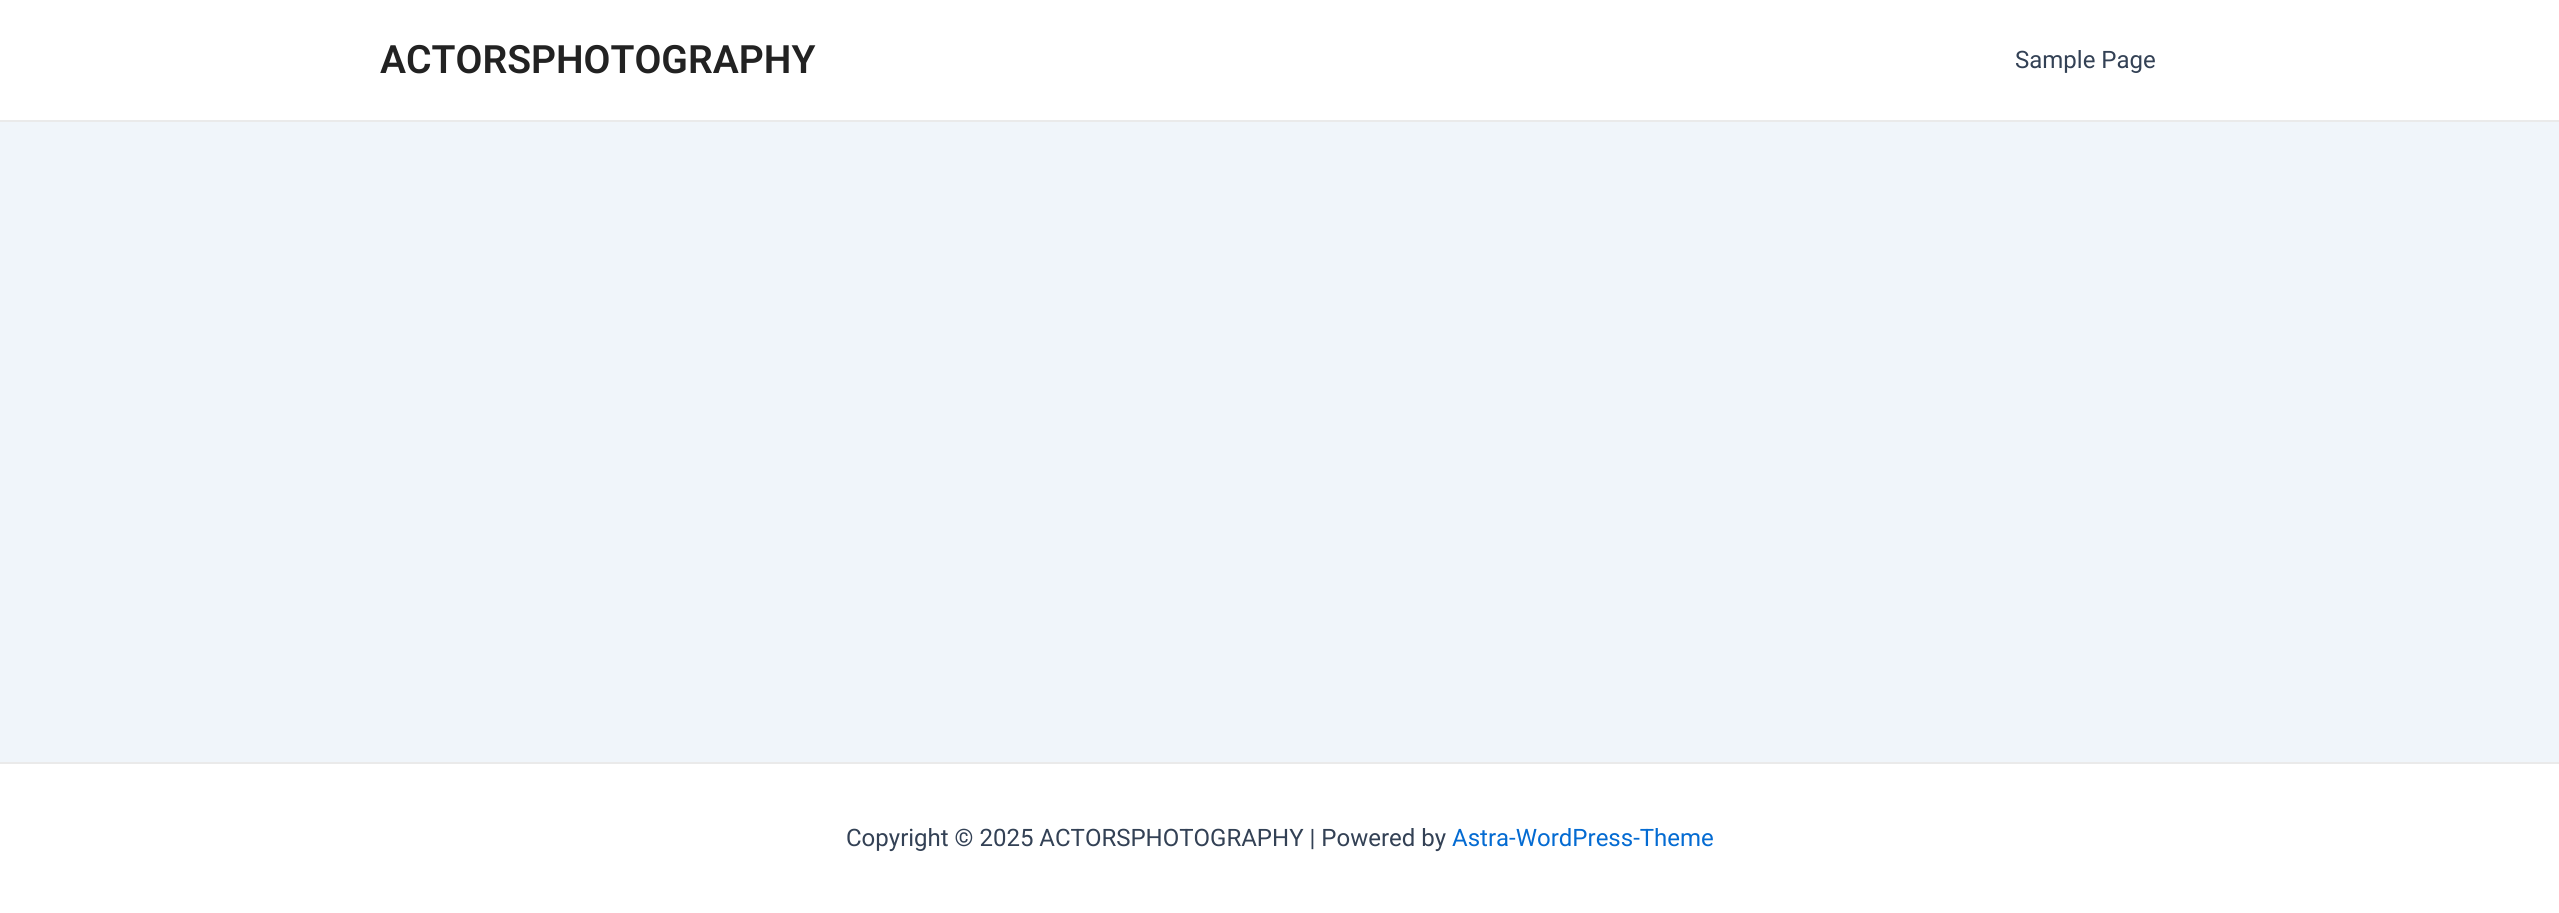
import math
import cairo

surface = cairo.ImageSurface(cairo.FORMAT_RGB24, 2559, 913)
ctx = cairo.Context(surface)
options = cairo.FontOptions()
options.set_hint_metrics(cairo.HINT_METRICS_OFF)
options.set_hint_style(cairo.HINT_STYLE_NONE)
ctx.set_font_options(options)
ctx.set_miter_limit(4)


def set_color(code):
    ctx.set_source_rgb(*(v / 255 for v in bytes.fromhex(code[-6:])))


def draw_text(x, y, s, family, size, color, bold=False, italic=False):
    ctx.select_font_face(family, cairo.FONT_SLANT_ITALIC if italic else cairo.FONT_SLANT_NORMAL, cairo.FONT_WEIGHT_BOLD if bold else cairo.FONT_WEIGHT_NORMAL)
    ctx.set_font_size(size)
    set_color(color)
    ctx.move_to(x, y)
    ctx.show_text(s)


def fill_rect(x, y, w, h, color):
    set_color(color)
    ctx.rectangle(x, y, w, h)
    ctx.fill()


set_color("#f0f5fa")
ctx.paint()
fill_rect(0, 0, 2559, 120, "#ffffff")
fill_rect(0, 120, 2559, 2, "#eaeaea")
draw_text(380, 73, "ACTORSPHOTOGRAPHY", "Roboto SemiBold", 39, "#222222")
draw_text(2015, 68, "Sample Page", "Roboto", 24, "#334155")
fill_rect(0, 764, 2559, 149, "#ffffff")
fill_rect(0, 762, 2559, 2, "#eaeaea")
draw_text(846, 846, "Copyright © 2025 ACTORSPHOTOGRAPHY | Powered by", "Roboto", 24, "#334155")
draw_text(1452, 846, "Astra-WordPress-Theme", "Roboto", 24, "#046bd2")
surface.write_to_png("output.png")
